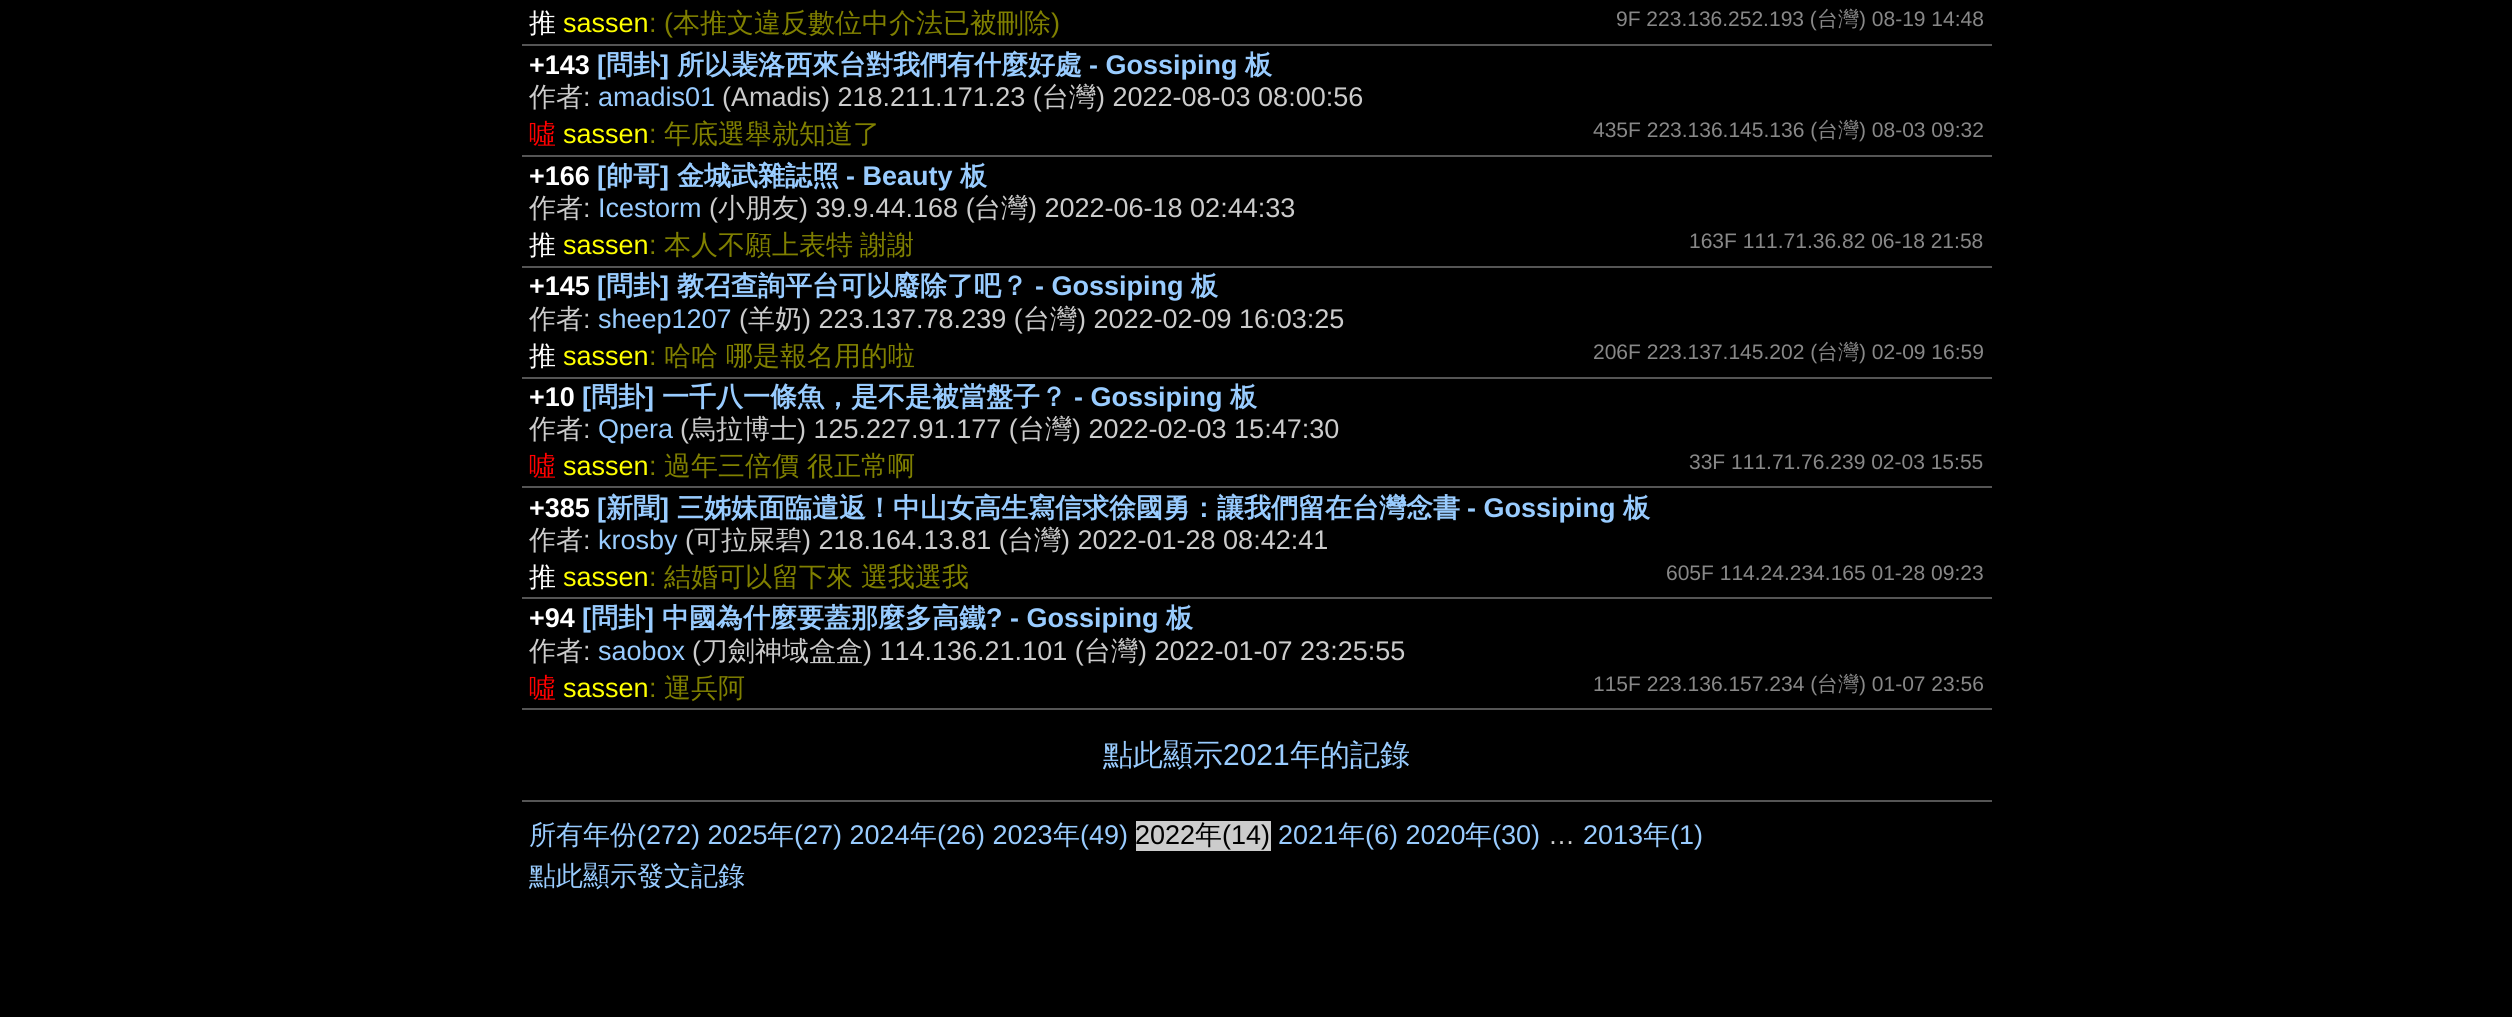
import math
import cairo

surface = cairo.ImageSurface(cairo.FORMAT_RGB24, 2512, 1017)
ctx = cairo.Context(surface)
options = cairo.FontOptions()
options.set_hint_metrics(cairo.HINT_METRICS_OFF)
options.set_hint_style(cairo.HINT_STYLE_NONE)
ctx.set_font_options(options)
ctx.set_miter_limit(4)


def set_color(code):
    ctx.set_source_rgb(*(v / 255 for v in bytes.fromhex(code[-6:])))


def draw_text(x, y, s, family, size, color, bold=False, italic=False):
    ctx.select_font_face(family, cairo.FONT_SLANT_ITALIC if italic else cairo.FONT_SLANT_NORMAL, cairo.FONT_WEIGHT_BOLD if bold else cairo.FONT_WEIGHT_NORMAL)
    ctx.set_font_size(size)
    set_color(color)
    ctx.move_to(x, y)
    ctx.show_text(s)


def draw_spaced(x, y, s, letter, word):
    ctx.move_to(x, y)
    for ch in s:
        ctx.show_text(ch)
        ctx.rel_move_to(letter + word * (ch == ' '), 0)


def fill_rect(x, y, w, h, color):
    set_color(color)
    ctx.rectangle(x, y, w, h)
    ctx.fill()


set_color("#000000")
ctx.paint()
fill_rect(522, 44, 1470, 2, "#555555")
draw_text(529, 32, "推", "WenQuanYi Zen Hei Medium", 27, "#ffffff")
draw_text(563, 32, "sassen", "Liberation Sans", 27, "#ffff00")
draw_text(649, 32, ": (", "Liberation Sans", 27, "#808000")
draw_text(673, 32, "本推文違反數位中介法已被刪除", "WenQuanYi Zen Hei Medium", 27, "#808000")
draw_text(1051, 32, ")", "Liberation Sans", 27, "#808000")
draw_text(1616, 26, "9F 223.136.252.193 (", "Liberation Sans", 21, "#888888")
draw_text(1817, 26, "台灣", "WenQuanYi Zen Hei Medium", 21, "#888888")
draw_text(1859, 26, ") 08-19 14:48", "Liberation Sans", 21, "#888888")
fill_rect(522, 155, 1470, 2, "#555555")
draw_text(529, 74, "+143", "Liberation Sans", 27, "#ffffff", bold=True)
draw_text(597, 74, "[", "Liberation Sans", 27, "#99ccff", bold=True)
draw_text(606, 74, "問卦", "WenQuanYi Zen Hei", 27, "#99ccff", bold=True)
draw_text(660, 74, "]", "Liberation Sans", 27, "#99ccff", bold=True)
draw_text(677, 74, "所以裴洛西來台對我們有什麼好處", "WenQuanYi Zen Hei", 27, "#99ccff", bold=True)
draw_text(1089, 74, "- Gossiping", "Liberation Sans", 27, "#99ccff", bold=True)
draw_text(1245, 74, "板", "WenQuanYi Zen Hei", 27, "#99ccff", bold=True)
draw_text(529, 106, "作者", "WenQuanYi Zen Hei Medium", 27, "#cccccc")
draw_text(583, 106, ":", "Liberation Sans", 27, "#cccccc")
draw_text(598, 106, "amadis01", "Liberation Sans", 27, "#99ccff")
draw_text(722, 106, "(Amadis) 218.211.171.23 (", "Liberation Sans", 27, "#cccccc")
draw_text(1042, 106, "台灣", "WenQuanYi Zen Hei Medium", 27, "#cccccc")
draw_text(1096, 106, ") 2022-08-03 08:00:56", "Liberation Sans", 27, "#cccccc")
draw_text(529, 143, "噓", "WenQuanYi Zen Hei Medium", 27, "#ff0000")
draw_text(563, 143, "sassen", "Liberation Sans", 27, "#ffff00")
draw_text(649, 143, ":", "Liberation Sans", 27, "#808000")
draw_text(664, 143, "年底選舉就知道了", "WenQuanYi Zen Hei Medium", 27, "#808000")
draw_text(1593, 137, "435F 223.136.145.136 (", "Liberation Sans", 21, "#888888")
draw_text(1817, 137, "台灣", "WenQuanYi Zen Hei Medium", 21, "#888888")
draw_text(1859, 137, ") 08-03 09:32", "Liberation Sans", 21, "#888888")
fill_rect(522, 266, 1470, 2, "#555555")
draw_text(529, 185, "+166", "Liberation Sans", 27, "#ffffff", bold=True)
draw_text(597, 185, "[", "Liberation Sans", 27, "#99ccff", bold=True)
draw_text(606, 185, "帥哥", "WenQuanYi Zen Hei", 27, "#99ccff", bold=True)
draw_text(660, 185, "]", "Liberation Sans", 27, "#99ccff", bold=True)
draw_text(677, 185, "金城武雜誌照", "WenQuanYi Zen Hei", 27, "#99ccff", bold=True)
draw_text(846, 185, "- Beauty", "Liberation Sans", 27, "#99ccff", bold=True)
draw_text(960, 185, "板", "WenQuanYi Zen Hei", 27, "#99ccff", bold=True)
draw_text(529, 217, "作者", "WenQuanYi Zen Hei Medium", 27, "#cccccc")
draw_text(583, 217, ":", "Liberation Sans", 27, "#cccccc")
draw_text(598, 217, "Icestorm", "Liberation Sans", 27, "#99ccff")
draw_text(709, 217, "(", "Liberation Sans", 27, "#cccccc")
draw_text(718, 217, "小朋友", "WenQuanYi Zen Hei Medium", 27, "#cccccc")
draw_text(799, 217, ") 39.9.44.168 (", "Liberation Sans", 27, "#cccccc")
draw_text(974, 217, "台灣", "WenQuanYi Zen Hei Medium", 27, "#cccccc")
draw_text(1028, 217, ") 2022-06-18 02:44:33", "Liberation Sans", 27, "#cccccc")
draw_text(529, 254, "推", "WenQuanYi Zen Hei Medium", 27, "#ffffff")
draw_text(563, 254, "sassen", "Liberation Sans", 27, "#ffff00")
draw_text(649, 254, ":", "Liberation Sans", 27, "#808000")
ctx.select_font_face("WenQuanYi Zen Hei Medium")
draw_spaced(664, 254, "本人不願上表特 謝謝", 0, -1)
draw_text(1689, 248, "163F 111.71.36.82 06-18 21:58", "Liberation Sans", 21, "#888888")
fill_rect(522, 377, 1470, 2, "#555555")
draw_text(529, 295, "+145", "Liberation Sans", 27, "#ffffff", bold=True)
draw_text(597, 295, "[", "Liberation Sans", 27, "#99ccff", bold=True)
draw_text(606, 295, "問卦", "WenQuanYi Zen Hei", 27, "#99ccff", bold=True)
draw_text(660, 295, "]", "Liberation Sans", 27, "#99ccff", bold=True)
draw_text(677, 295, "教召查詢平台可以廢除了吧？", "WenQuanYi Zen Hei", 27, "#99ccff", bold=True)
draw_text(1035, 295, "- Gossiping", "Liberation Sans", 27, "#99ccff", bold=True)
draw_text(1191, 295, "板", "WenQuanYi Zen Hei", 27, "#99ccff", bold=True)
draw_text(529, 328, "作者", "WenQuanYi Zen Hei Medium", 27, "#cccccc")
draw_text(583, 328, ":", "Liberation Sans", 27, "#cccccc")
draw_text(598, 328, "sheep1207", "Liberation Sans", 27, "#99ccff")
draw_text(739, 328, "(", "Liberation Sans", 27, "#cccccc")
draw_text(748, 328, "羊奶", "WenQuanYi Zen Hei Medium", 27, "#cccccc")
draw_text(802, 328, ") 223.137.78.239 (", "Liberation Sans", 27, "#cccccc")
draw_text(1023, 328, "台灣", "WenQuanYi Zen Hei Medium", 27, "#cccccc")
draw_text(1077, 328, ") 2022-02-09 16:03:25", "Liberation Sans", 27, "#cccccc")
draw_text(529, 365, "推", "WenQuanYi Zen Hei Medium", 27, "#ffffff")
draw_text(563, 365, "sassen", "Liberation Sans", 27, "#ffff00")
draw_text(649, 365, ":", "Liberation Sans", 27, "#808000")
draw_text(664, 365, "哈哈 哪是報名用的啦", "WenQuanYi Zen Hei Medium", 27, "#808000")
draw_text(1593, 359, "206F 223.137.145.202 (", "Liberation Sans", 21, "#888888")
draw_text(1817, 359, "台灣", "WenQuanYi Zen Hei Medium", 21, "#888888")
draw_text(1859, 359, ") 02-09 16:59", "Liberation Sans", 21, "#888888")
fill_rect(522, 486, 1470, 2, "#555555")
draw_text(529, 406, "+10", "Liberation Sans", 27, "#ffffff", bold=True)
draw_text(582, 406, "[", "Liberation Sans", 27, "#99ccff", bold=True)
draw_text(591, 406, "問卦", "WenQuanYi Zen Hei", 27, "#99ccff", bold=True)
draw_text(645, 406, "]", "Liberation Sans", 27, "#99ccff", bold=True)
draw_text(662, 406, "一千八一條魚，是不是被當盤子？", "WenQuanYi Zen Hei", 27, "#99ccff", bold=True)
draw_text(1074, 406, "- Gossiping", "Liberation Sans", 27, "#99ccff", bold=True)
draw_text(1230, 406, "板", "WenQuanYi Zen Hei", 27, "#99ccff", bold=True)
draw_text(529, 438, "作者", "WenQuanYi Zen Hei Medium", 27, "#cccccc")
draw_text(583, 438, ":", "Liberation Sans", 27, "#cccccc")
draw_text(598, 438, "Qpera", "Liberation Sans", 27, "#99ccff")
draw_text(680, 438, "(", "Liberation Sans", 27, "#cccccc")
draw_text(689, 438, "烏拉博士", "WenQuanYi Zen Hei Medium", 27, "#cccccc")
draw_text(797, 438, ") 125.227.91.177 (", "Liberation Sans", 27, "#cccccc")
draw_text(1018, 438, "台灣", "WenQuanYi Zen Hei Medium", 27, "#cccccc")
draw_text(1072, 438, ") 2022-02-03 15:47:30", "Liberation Sans", 27, "#cccccc")
draw_text(529, 475, "噓", "WenQuanYi Zen Hei Medium", 27, "#ff0000")
draw_text(563, 475, "sassen", "Liberation Sans", 27, "#ffff00")
draw_text(649, 475, ":", "Liberation Sans", 27, "#808000")
draw_text(664, 475, "過年三倍價 很正常啊", "WenQuanYi Zen Hei Medium", 27, "#808000")
draw_text(1689, 469, "33F 111.71.76.239 02-03 15:55", "Liberation Sans", 21, "#888888")
fill_rect(522, 597, 1470, 2, "#555555")
draw_text(529, 517, "+385", "Liberation Sans", 27, "#ffffff", bold=True)
draw_text(597, 517, "[", "Liberation Sans", 27, "#99ccff", bold=True)
draw_text(606, 517, "新聞", "WenQuanYi Zen Hei", 27, "#99ccff", bold=True)
draw_text(660, 517, "]", "Liberation Sans", 27, "#99ccff", bold=True)
draw_text(677, 517, "三姊妹面臨遣返！中山女高生寫信求徐國勇：讓我們留在台灣念書", "WenQuanYi Zen Hei", 27, "#99ccff", bold=True)
draw_text(1467, 517, "- Gossiping", "Liberation Sans", 27, "#99ccff", bold=True)
draw_text(1623, 517, "板", "WenQuanYi Zen Hei", 27, "#99ccff", bold=True)
draw_text(529, 549, "作者", "WenQuanYi Zen Hei Medium", 27, "#cccccc")
draw_text(583, 549, ":", "Liberation Sans", 27, "#cccccc")
draw_text(598, 549, "krosby", "Liberation Sans", 27, "#99ccff")
draw_text(685, 549, "(", "Liberation Sans", 27, "#cccccc")
draw_text(694, 549, "可拉屎碧", "WenQuanYi Zen Hei Medium", 27, "#cccccc")
draw_text(802, 549, ") 218.164.13.81 (", "Liberation Sans", 27, "#cccccc")
draw_text(1007, 549, "台灣", "WenQuanYi Zen Hei Medium", 27, "#cccccc")
draw_text(1061, 549, ") 2022-01-28 08:42:41", "Liberation Sans", 27, "#cccccc")
draw_text(529, 586, "推", "WenQuanYi Zen Hei Medium", 27, "#ffffff")
draw_text(563, 586, "sassen", "Liberation Sans", 27, "#ffff00")
draw_text(649, 586, ":", "Liberation Sans", 27, "#808000")
draw_text(664, 586, "結婚可以留下來 選我選我", "WenQuanYi Zen Hei Medium", 27, "#808000")
draw_text(1666, 580, "605F 114.24.234.165 01-28 09:23", "Liberation Sans", 21, "#888888")
fill_rect(522, 708, 1470, 2, "#555555")
draw_text(529, 627, "+94", "Liberation Sans", 27, "#ffffff", bold=True)
draw_text(582, 627, "[", "Liberation Sans", 27, "#99ccff", bold=True)
draw_text(591, 627, "問卦", "WenQuanYi Zen Hei", 27, "#99ccff", bold=True)
draw_text(645, 627, "]", "Liberation Sans", 27, "#99ccff", bold=True)
draw_text(662, 627, "中國為什麼要蓋那麼多高鐵", "WenQuanYi Zen Hei", 27, "#99ccff", bold=True)
draw_text(986, 627, "? - Gossiping", "Liberation Sans", 27, "#99ccff", bold=True)
draw_text(1166, 627, "板", "WenQuanYi Zen Hei", 27, "#99ccff", bold=True)
draw_text(529, 660, "作者", "WenQuanYi Zen Hei Medium", 27, "#cccccc")
draw_text(583, 660, ":", "Liberation Sans", 27, "#cccccc")
draw_text(598, 660, "saobox", "Liberation Sans", 27, "#99ccff")
draw_text(692, 660, "(", "Liberation Sans", 27, "#cccccc")
draw_text(701, 660, "刀劍神域盒盒", "WenQuanYi Zen Hei Medium", 27, "#cccccc")
draw_text(863, 660, ") 114.136.21.101 (", "Liberation Sans", 27, "#cccccc")
draw_text(1084, 660, "台灣", "WenQuanYi Zen Hei Medium", 27, "#cccccc")
draw_text(1138, 660, ") 2022-01-07 23:25:55", "Liberation Sans", 27, "#cccccc")
draw_text(529, 697, "噓", "WenQuanYi Zen Hei Medium", 27, "#ff0000")
draw_text(563, 697, "sassen", "Liberation Sans", 27, "#ffff00")
draw_text(649, 697, ":", "Liberation Sans", 27, "#808000")
draw_text(664, 697, "運兵阿", "WenQuanYi Zen Hei Medium", 27, "#808000")
draw_text(1593, 691, "115F 223.136.157.234 (", "Liberation Sans", 21, "#888888")
draw_text(1817, 691, "台灣", "WenQuanYi Zen Hei Medium", 21, "#888888")
draw_text(1859, 691, ") 01-07 23:56", "Liberation Sans", 21, "#888888")
fill_rect(522, 800, 1470, 2, "#555555")
draw_text(1103, 765, "點此顯示", "WenQuanYi Zen Hei Medium", 30, "#99ccff")
draw_text(1223, 765, "2021", "Liberation Sans", 30, "#99ccff")
draw_text(1290, 765, "年的記錄", "WenQuanYi Zen Hei Medium", 30, "#99ccff")
draw_text(529, 844, "所有年份", "WenQuanYi Zen Hei Medium", 27, "#99ccff")
draw_text(637, 844, "(272) 2025", "Liberation Sans", 27, "#99ccff")
draw_text(767, 844, "年", "WenQuanYi Zen Hei Medium", 27, "#99ccff")
draw_text(794, 844, "(27) 2024", "Liberation Sans", 27, "#99ccff")
draw_text(910, 844, "年", "WenQuanYi Zen Hei Medium", 27, "#99ccff")
draw_text(937, 844, "(26) 2023", "Liberation Sans", 27, "#99ccff")
draw_text(1053, 844, "年", "WenQuanYi Zen Hei Medium", 27, "#99ccff")
draw_text(1080, 844, "(49)", "Liberation Sans", 27, "#99ccff")
fill_rect(1136, 821, 135, 30, "#cccccc")
draw_text(1135, 844, "2022", "Liberation Sans", 27, "#000000")
draw_text(1195, 844, "年", "WenQuanYi Zen Hei Medium", 27, "#000000")
draw_text(1222, 844, "(14)", "Liberation Sans", 27, "#000000")
draw_text(1278, 844, "2021", "Liberation Sans", 27, "#99ccff")
draw_text(1338, 844, "年", "WenQuanYi Zen Hei Medium", 27, "#99ccff")
draw_text(1365, 844, "(6) 2020", "Liberation Sans", 27, "#99ccff")
draw_text(1465, 844, "年", "WenQuanYi Zen Hei Medium", 27, "#99ccff")
draw_text(1492, 844, "(30)", "Liberation Sans", 27, "#99ccff")
draw_text(1548, 844, "…", "Liberation Sans", 27, "#cccccc")
draw_text(1583, 844, "2013", "Liberation Sans", 27, "#99ccff")
draw_text(1643, 844, "年", "WenQuanYi Zen Hei Medium", 27, "#99ccff")
draw_text(1670, 844, "(1)", "Liberation Sans", 27, "#99ccff")
draw_text(529, 885, "點此顯示發文記錄", "WenQuanYi Zen Hei Medium", 27, "#99ccff")
surface.write_to_png("output.png")
